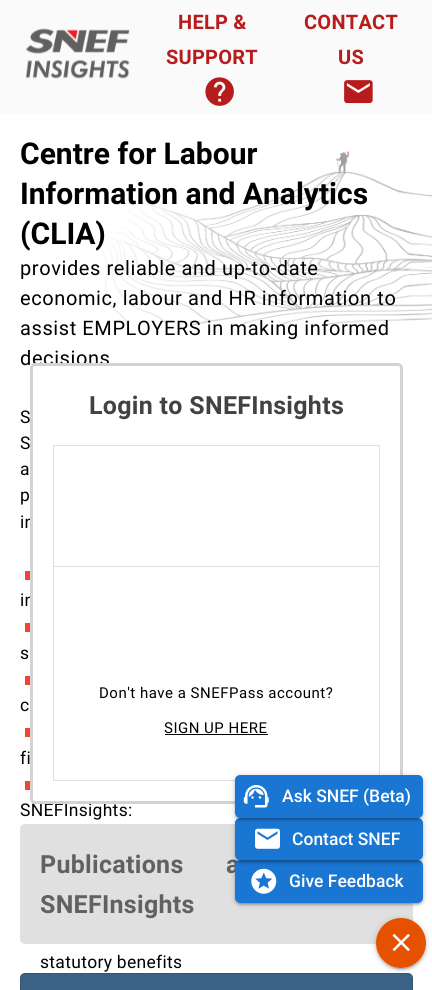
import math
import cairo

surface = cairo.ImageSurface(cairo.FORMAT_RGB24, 432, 990)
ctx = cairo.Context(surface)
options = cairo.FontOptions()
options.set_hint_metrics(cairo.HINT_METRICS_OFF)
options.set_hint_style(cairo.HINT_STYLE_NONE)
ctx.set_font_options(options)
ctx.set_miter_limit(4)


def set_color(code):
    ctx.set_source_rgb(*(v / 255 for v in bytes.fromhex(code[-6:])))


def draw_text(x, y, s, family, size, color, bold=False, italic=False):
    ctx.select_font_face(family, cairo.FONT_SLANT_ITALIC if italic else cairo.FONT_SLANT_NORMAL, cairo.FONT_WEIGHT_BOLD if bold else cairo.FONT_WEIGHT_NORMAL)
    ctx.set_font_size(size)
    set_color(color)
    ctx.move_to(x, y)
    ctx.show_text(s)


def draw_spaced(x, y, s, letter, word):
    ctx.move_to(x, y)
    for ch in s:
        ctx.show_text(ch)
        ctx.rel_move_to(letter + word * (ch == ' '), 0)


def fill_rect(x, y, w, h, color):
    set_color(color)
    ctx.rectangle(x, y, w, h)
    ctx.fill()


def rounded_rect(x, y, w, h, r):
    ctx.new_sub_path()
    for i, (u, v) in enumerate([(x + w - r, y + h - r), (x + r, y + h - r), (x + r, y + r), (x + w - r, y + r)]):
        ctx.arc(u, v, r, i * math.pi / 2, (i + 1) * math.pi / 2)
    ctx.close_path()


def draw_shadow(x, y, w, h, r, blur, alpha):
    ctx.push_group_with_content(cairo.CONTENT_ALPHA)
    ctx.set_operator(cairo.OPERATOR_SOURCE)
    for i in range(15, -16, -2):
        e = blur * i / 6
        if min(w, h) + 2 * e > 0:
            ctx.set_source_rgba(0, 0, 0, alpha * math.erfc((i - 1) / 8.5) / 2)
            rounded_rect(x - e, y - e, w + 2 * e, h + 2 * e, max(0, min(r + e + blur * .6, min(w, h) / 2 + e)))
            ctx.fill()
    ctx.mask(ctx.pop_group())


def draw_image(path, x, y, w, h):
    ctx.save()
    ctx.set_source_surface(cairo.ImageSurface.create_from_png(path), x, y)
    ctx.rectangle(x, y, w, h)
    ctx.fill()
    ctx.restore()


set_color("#ffffff")
ctx.paint()
fill_rect(0, 0, 432, 114, "#fafafa")
draw_image("assets/img1.png", 25, 28, 105, 51)
ctx.select_font_face("Roboto", cairo.FONT_SLANT_NORMAL, cairo.FONT_WEIGHT_BOLD)
ctx.set_font_size(20)
set_color("#b71c1c")
draw_spaced(178, 29, "HELP &", 0.25, 0)
draw_spaced(166, 64, "SUPPORT", 0.25, 0)
draw_image("assets/img2.png", 205, 77, 29, 29)
draw_spaced(304, 29, "CONTACT", 0.25, 0)
draw_spaced(338, 64, "US", 0.25, 0)
draw_image("assets/img3.png", 344, 80, 29, 24)
draw_image("assets/img4.png", 101, 151, 331, 174)
draw_text(20, 164, "Centre for Labour", "Roboto", 30, "#000000", bold=True)
draw_text(20, 204, "Information and Analytics", "Roboto", 30, "#000000", bold=True)
draw_text(20, 244, "(CLIA)", "Roboto", 30, "#000000", bold=True)
ctx.select_font_face("Roboto")
ctx.set_font_size(20)
draw_spaced(20, 275, "provides reliable and up-to-date", 0.6, 0)
draw_spaced(20, 305, "economic, labour and HR information to", 0.6, 0)
draw_spaced(20, 335, "assist EMPLOYERS in making informed", 0.6, 0)
draw_spaced(20, 365, "decisions", 0.6, 0)
ctx.set_font_size(17.5)
draw_spaced(20, 423, "S", 0.3, 0)
draw_spaced(20, 449, "S", 0.3, 0)
draw_spaced(20, 475, "a", 0.3, 0)
draw_spaced(20, 501, "p", 0.3, 0)
draw_spaced(20, 528, "in", 0.3, 0)
fill_rect(25, 571, 5, 9, "#f44336")
set_color("#000000")
draw_spaced(20, 606, "in", 0.3, 0)
fill_rect(25, 623, 5, 9, "#f44336")
set_color("#000000")
draw_spaced(20, 659, "s", 0.3, 0)
fill_rect(25, 676, 5, 9, "#f44336")
set_color("#000000")
draw_spaced(20, 711, "c", 0.3, 0)
fill_rect(25, 728, 5, 9, "#f44336")
set_color("#000000")
draw_spaced(20, 764, "fi", 0.3, 0)
fill_rect(25, 781, 5, 9, "#f44336")
set_color("#000000")
draw_spaced(20, 816, "SNEFInsights:", 0.3, 0)
draw_spaced(40, 968, "statutory benefits", 0.3, 0)
set_color("#ffffff")
rounded_rect(31.5, 364.5, 370, 438, 3.5)
ctx.fill_preserve()
set_color("#d3d3d3")
ctx.set_line_width(3)
ctx.stroke()
ctx.select_font_face("Roboto", cairo.FONT_SLANT_NORMAL, cairo.FONT_WEIGHT_BOLD)
ctx.set_font_size(25)
set_color("#424242")
draw_spaced(89, 414, "Login to SNEFInsights", 0.3, 0)
ctx.rectangle(53.5, 445.5, 326, 335)
set_color("#e0e0e0")
ctx.set_line_width(1)
ctx.stroke()
fill_rect(54, 566, 325, 1, "#e0e0e0")
ctx.select_font_face("Roboto")
ctx.set_font_size(15)
set_color("#000000")
draw_spaced(99, 698, "Don't have a SNEFPass account?", 0.5, 0)
draw_spaced(164, 733, "SIGN UP HERE", 0.5, 0)
fill_rect(165, 734, 103, 1, "#000000")
set_color("#e0e0e0")
rounded_rect(20, 824, 393, 120, 5)
ctx.fill()
ctx.select_font_face("Roboto", cairo.FONT_SLANT_NORMAL, cairo.FONT_WEIGHT_BOLD)
ctx.set_font_size(25)
set_color("#616161")
draw_spaced(40, 873, "Publications a", 0.3, 36)
draw_spaced(40, 913, "SNEFInsights", 0.3, 0)
set_color("#3b6284")
rounded_rect(20, 973, 393, 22, 5)
ctx.fill()
rounded_rect(20.5, 973.5, 392, 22, 4.5)
ctx.set_source_rgba(0, 0, 0, 0.12)
ctx.stroke()
set_color("#1976d2")
rounded_rect(235, 860, 188, 43, 5)
ctx.fill()
ctx.save()
ctx.set_fill_rule(cairo.FILL_RULE_EVEN_ODD)
ctx.new_path()
ctx.move_to(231, 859)
ctx.line_to(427, 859)
ctx.line_to(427, 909)
ctx.line_to(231, 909)
ctx.close_path()
ctx.move_to(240, 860)
ctx.line_to(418, 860)
ctx.curve_to(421, 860, 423, 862, 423, 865)
ctx.line_to(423, 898)
ctx.curve_to(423, 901, 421, 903, 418, 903)
ctx.line_to(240, 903)
ctx.curve_to(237, 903, 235, 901, 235, 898)
ctx.line_to(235, 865)
ctx.curve_to(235, 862, 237, 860, 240, 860)
ctx.close_path()
ctx.clip()
set_color("#000000")
draw_shadow(235, 863, 188, 42, 5, 1, 0.14)
ctx.restore()
ctx.save()
ctx.set_fill_rule(cairo.FILL_RULE_EVEN_ODD)
ctx.new_path()
ctx.move_to(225, 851)
ctx.line_to(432, 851)
ctx.line_to(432, 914)
ctx.line_to(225, 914)
ctx.close_path()
ctx.move_to(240, 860)
ctx.line_to(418, 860)
ctx.curve_to(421, 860, 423, 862, 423, 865)
ctx.line_to(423, 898)
ctx.curve_to(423, 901, 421, 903, 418, 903)
ctx.line_to(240, 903)
ctx.curve_to(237, 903, 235, 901, 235, 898)
ctx.line_to(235, 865)
ctx.curve_to(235, 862, 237, 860, 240, 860)
ctx.close_path()
ctx.clip()
set_color("#000000")
draw_shadow(235, 861, 188, 43, 5, 3, 0.2)
ctx.restore()
rounded_rect(235, 818, 188, 42, 5)
ctx.fill()
ctx.save()
ctx.set_fill_rule(cairo.FILL_RULE_EVEN_ODD)
ctx.new_path()
ctx.move_to(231, 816)
ctx.line_to(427, 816)
ctx.line_to(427, 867)
ctx.line_to(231, 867)
ctx.close_path()
ctx.move_to(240, 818)
ctx.line_to(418, 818)
ctx.curve_to(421, 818, 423, 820, 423, 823)
ctx.line_to(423, 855)
ctx.curve_to(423, 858, 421, 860, 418, 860)
ctx.line_to(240, 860)
ctx.curve_to(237, 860, 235, 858, 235, 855)
ctx.line_to(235, 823)
ctx.curve_to(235, 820, 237, 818, 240, 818)
ctx.close_path()
ctx.clip()
set_color("#000000")
draw_shadow(235, 820, 188, 43, 5, 1, 0.14)
ctx.restore()
ctx.save()
ctx.set_fill_rule(cairo.FILL_RULE_EVEN_ODD)
ctx.new_path()
ctx.move_to(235, 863)
ctx.line_to(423, 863)
ctx.line_to(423, 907)
ctx.line_to(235, 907)
ctx.close_path()
ctx.move_to(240, 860)
ctx.line_to(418, 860)
ctx.curve_to(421, 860, 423, 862, 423, 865)
ctx.line_to(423, 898)
ctx.curve_to(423, 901, 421, 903, 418, 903)
ctx.line_to(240, 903)
ctx.curve_to(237, 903, 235, 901, 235, 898)
ctx.line_to(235, 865)
ctx.curve_to(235, 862, 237, 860, 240, 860)
ctx.close_path()
ctx.clip()
set_color("#000000")
draw_shadow(238, 866, 182, 38, 2.5, 0.5, 0.12)
ctx.restore()
draw_image("assets/img7.png", 251, 868, 26, 26)
ctx.save()
ctx.set_fill_rule(cairo.FILL_RULE_EVEN_ODD)
ctx.new_path()
ctx.move_to(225, 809)
ctx.line_to(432, 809)
ctx.line_to(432, 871)
ctx.line_to(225, 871)
ctx.close_path()
ctx.move_to(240, 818)
ctx.line_to(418, 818)
ctx.curve_to(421, 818, 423, 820, 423, 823)
ctx.line_to(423, 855)
ctx.curve_to(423, 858, 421, 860, 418, 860)
ctx.line_to(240, 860)
ctx.curve_to(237, 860, 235, 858, 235, 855)
ctx.line_to(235, 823)
ctx.curve_to(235, 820, 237, 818, 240, 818)
ctx.close_path()
ctx.clip()
set_color("#000000")
draw_shadow(235, 819, 188, 42, 5, 3, 0.2)
ctx.restore()
rounded_rect(235, 775, 188, 43, 5)
ctx.fill()
ctx.save()
ctx.set_fill_rule(cairo.FILL_RULE_EVEN_ODD)
ctx.new_path()
ctx.move_to(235, 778)
ctx.line_to(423, 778)
ctx.line_to(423, 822)
ctx.line_to(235, 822)
ctx.close_path()
ctx.move_to(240, 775)
ctx.line_to(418, 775)
ctx.curve_to(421, 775, 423, 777, 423, 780)
ctx.line_to(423, 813)
ctx.curve_to(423, 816, 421, 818, 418, 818)
ctx.line_to(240, 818)
ctx.curve_to(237, 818, 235, 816, 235, 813)
ctx.line_to(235, 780)
ctx.curve_to(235, 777, 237, 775, 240, 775)
ctx.close_path()
ctx.clip()
set_color("#000000")
draw_shadow(238, 781, 182, 38, 2.5, 0.5, 0.12)
ctx.restore()
ctx.save()
ctx.set_fill_rule(cairo.FILL_RULE_EVEN_ODD)
ctx.new_path()
ctx.move_to(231, 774)
ctx.line_to(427, 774)
ctx.line_to(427, 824)
ctx.line_to(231, 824)
ctx.close_path()
ctx.move_to(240, 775)
ctx.line_to(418, 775)
ctx.curve_to(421, 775, 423, 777, 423, 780)
ctx.line_to(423, 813)
ctx.curve_to(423, 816, 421, 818, 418, 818)
ctx.line_to(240, 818)
ctx.curve_to(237, 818, 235, 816, 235, 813)
ctx.line_to(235, 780)
ctx.curve_to(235, 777, 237, 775, 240, 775)
ctx.close_path()
ctx.clip()
set_color("#000000")
draw_shadow(235, 778, 188, 42, 5, 1, 0.14)
ctx.restore()
ctx.save()
ctx.set_fill_rule(cairo.FILL_RULE_EVEN_ODD)
ctx.new_path()
ctx.move_to(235, 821)
ctx.line_to(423, 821)
ctx.line_to(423, 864)
ctx.line_to(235, 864)
ctx.close_path()
ctx.move_to(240, 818)
ctx.line_to(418, 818)
ctx.curve_to(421, 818, 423, 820, 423, 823)
ctx.line_to(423, 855)
ctx.curve_to(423, 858, 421, 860, 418, 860)
ctx.line_to(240, 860)
ctx.curve_to(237, 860, 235, 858, 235, 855)
ctx.line_to(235, 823)
ctx.curve_to(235, 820, 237, 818, 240, 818)
ctx.close_path()
ctx.clip()
set_color("#000000")
draw_shadow(238, 824, 182, 37, 2.5, 0.5, 0.12)
ctx.restore()
draw_image("assets/img6.png", 255, 828, 25, 21)
ctx.save()
ctx.set_fill_rule(cairo.FILL_RULE_EVEN_ODD)
ctx.new_path()
ctx.move_to(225, 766)
ctx.line_to(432, 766)
ctx.line_to(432, 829)
ctx.line_to(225, 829)
ctx.close_path()
ctx.move_to(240, 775)
ctx.line_to(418, 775)
ctx.curve_to(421, 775, 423, 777, 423, 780)
ctx.line_to(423, 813)
ctx.curve_to(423, 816, 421, 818, 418, 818)
ctx.line_to(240, 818)
ctx.curve_to(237, 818, 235, 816, 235, 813)
ctx.line_to(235, 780)
ctx.curve_to(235, 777, 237, 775, 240, 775)
ctx.close_path()
ctx.clip()
set_color("#000000")
draw_shadow(235, 776, 188, 43, 5, 3, 0.2)
ctx.restore()
draw_image("assets/img5.png", 243, 785, 26, 23)
draw_text(282, 802, "Ask SNEF (Beta)", "Roboto Medium", 17.5, "#ffffff")
draw_text(292, 845, "Contact SNEF", "Roboto Medium", 17.5, "#ffffff")
draw_text(289, 887, "Give Feedback", "Roboto Medium", 17.5, "#ffffff")
set_color("#e65100")
ctx.new_path()
ctx.arc(401, 943, 25, 0, 2 * math.pi)
ctx.fill()
ctx.save()
ctx.set_fill_rule(cairo.FILL_RULE_EVEN_ODD)
ctx.new_path()
ctx.move_to(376, 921)
ctx.line_to(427, 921)
ctx.line_to(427, 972)
ctx.line_to(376, 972)
ctx.close_path()
ctx.move_to(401, 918)
ctx.curve_to(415, 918, 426, 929, 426, 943)
ctx.curve_to(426, 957, 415, 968, 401, 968)
ctx.curve_to(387, 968, 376, 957, 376, 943)
ctx.curve_to(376, 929, 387, 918, 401, 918)
ctx.close_path()
ctx.clip()
set_color("#000000")
draw_shadow(379, 924, 45, 45, 22.5, 0.5, 0.12)
ctx.restore()
ctx.save()
ctx.set_fill_rule(cairo.FILL_RULE_EVEN_ODD)
ctx.new_path()
ctx.move_to(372, 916)
ctx.line_to(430, 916)
ctx.line_to(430, 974)
ctx.line_to(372, 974)
ctx.close_path()
ctx.move_to(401, 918)
ctx.curve_to(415, 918, 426, 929, 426, 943)
ctx.curve_to(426, 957, 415, 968, 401, 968)
ctx.curve_to(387, 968, 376, 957, 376, 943)
ctx.curve_to(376, 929, 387, 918, 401, 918)
ctx.close_path()
ctx.clip()
set_color("#000000")
draw_shadow(376, 920, 50, 50, 25, 1, 0.14)
ctx.restore()
ctx.save()
ctx.set_fill_rule(cairo.FILL_RULE_EVEN_ODD)
ctx.new_path()
ctx.move_to(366, 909)
ctx.line_to(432, 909)
ctx.line_to(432, 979)
ctx.line_to(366, 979)
ctx.close_path()
ctx.move_to(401, 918)
ctx.curve_to(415, 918, 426, 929, 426, 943)
ctx.curve_to(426, 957, 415, 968, 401, 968)
ctx.curve_to(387, 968, 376, 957, 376, 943)
ctx.curve_to(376, 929, 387, 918, 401, 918)
ctx.close_path()
ctx.clip()
set_color("#000000")
draw_shadow(376, 919, 50, 50, 25, 3, 0.2)
ctx.restore()
draw_image("assets/img8.png", 392, 933, 18, 19)
surface.write_to_png("output.png")
